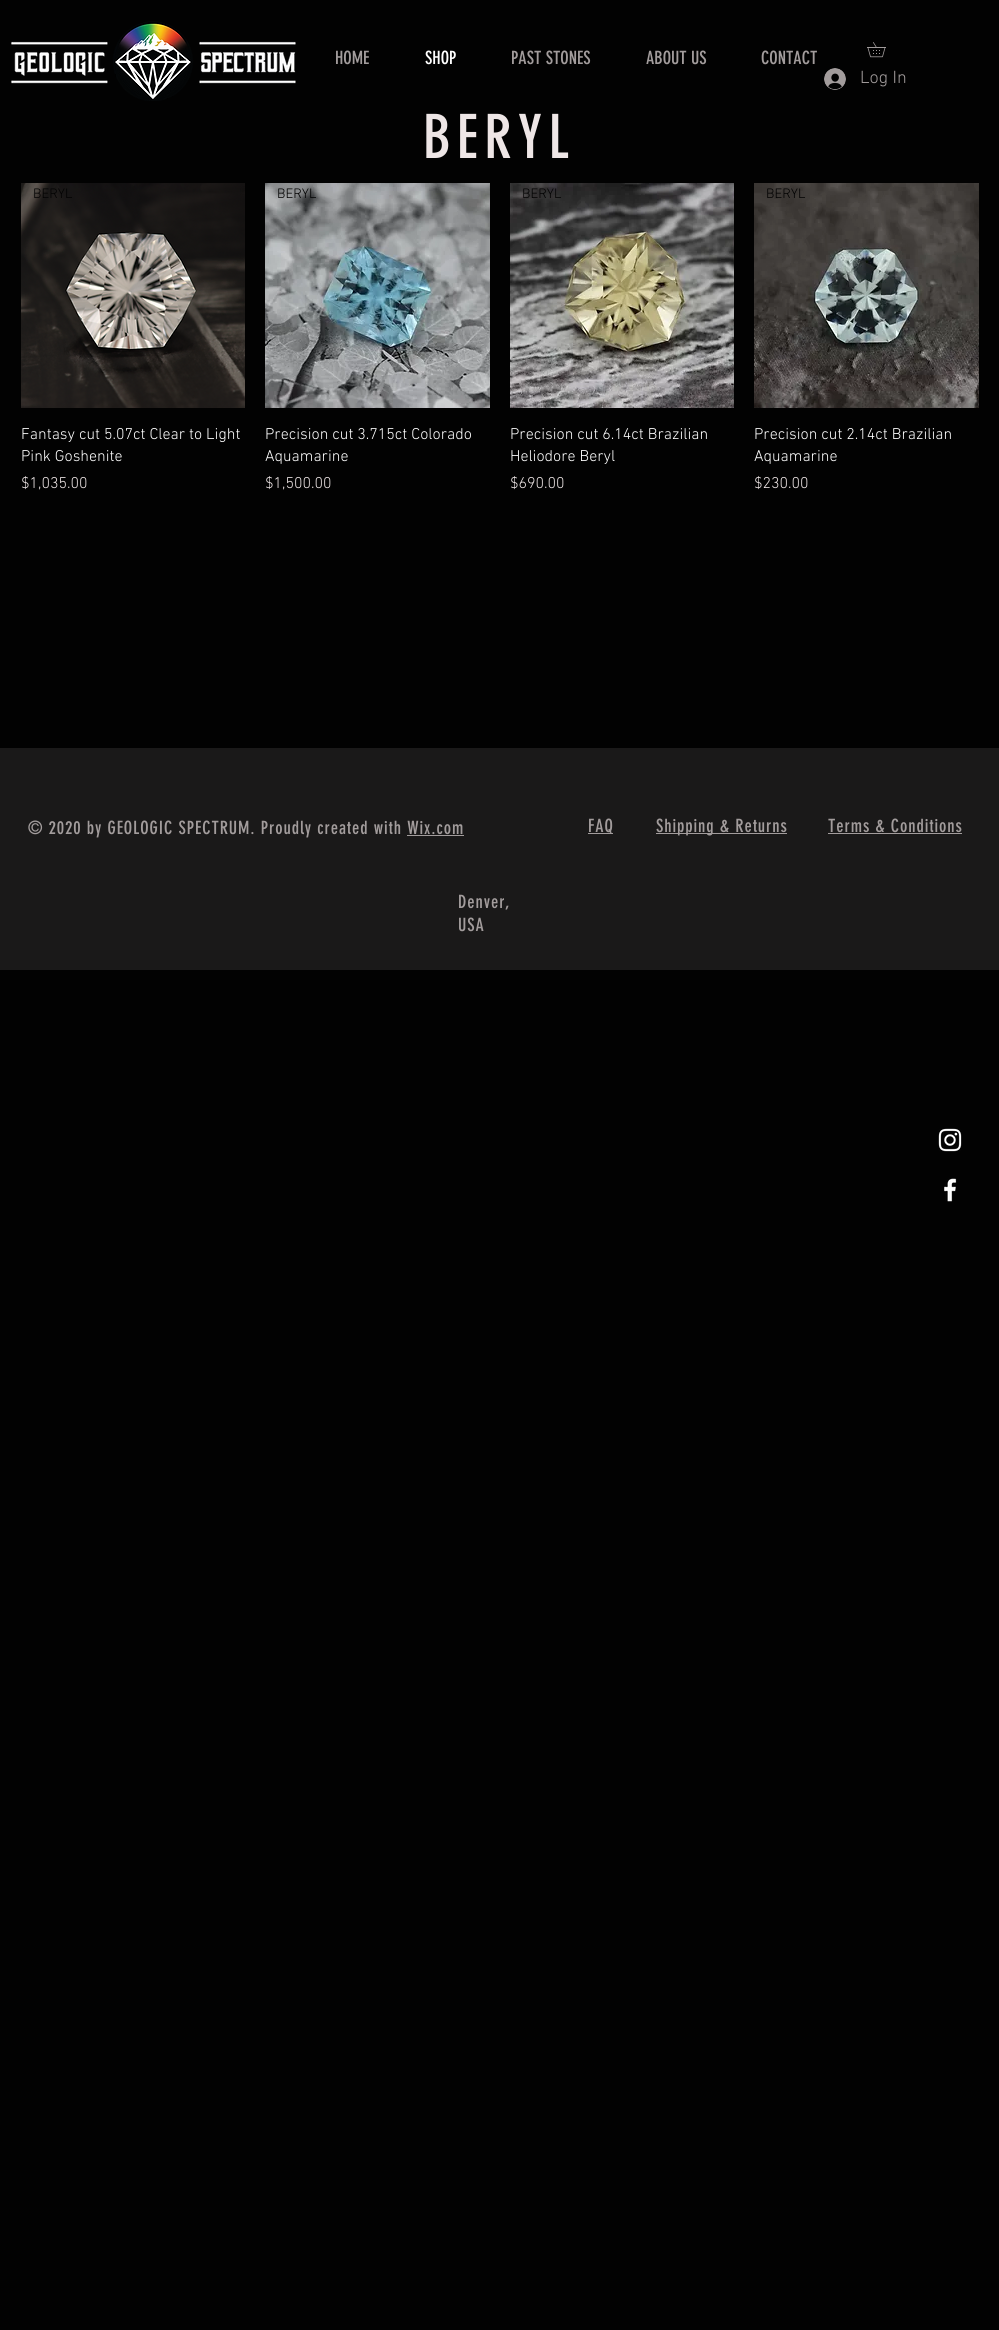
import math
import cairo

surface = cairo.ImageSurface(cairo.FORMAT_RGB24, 999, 2330)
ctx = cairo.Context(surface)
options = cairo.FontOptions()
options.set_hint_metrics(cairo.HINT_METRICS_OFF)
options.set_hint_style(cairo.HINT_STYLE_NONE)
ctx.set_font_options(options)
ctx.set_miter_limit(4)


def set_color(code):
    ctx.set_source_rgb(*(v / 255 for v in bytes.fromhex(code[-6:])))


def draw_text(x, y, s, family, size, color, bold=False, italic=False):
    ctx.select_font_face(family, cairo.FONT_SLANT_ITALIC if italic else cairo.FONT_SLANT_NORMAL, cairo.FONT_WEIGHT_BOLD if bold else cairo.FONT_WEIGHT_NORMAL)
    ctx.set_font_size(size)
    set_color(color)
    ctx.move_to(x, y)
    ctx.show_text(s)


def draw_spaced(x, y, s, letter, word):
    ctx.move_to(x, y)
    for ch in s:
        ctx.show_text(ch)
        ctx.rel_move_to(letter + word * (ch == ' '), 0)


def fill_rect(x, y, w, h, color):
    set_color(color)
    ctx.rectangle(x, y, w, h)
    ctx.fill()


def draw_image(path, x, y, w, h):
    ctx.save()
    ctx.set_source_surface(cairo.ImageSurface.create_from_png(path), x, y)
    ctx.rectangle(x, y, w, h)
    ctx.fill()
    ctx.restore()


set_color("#020202")
ctx.paint()
draw_image("assets/img1.png", 11, 21, 285, 80)
draw_text(335, 64, "HOME", "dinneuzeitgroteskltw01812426", 18, "#a29c9c")
draw_text(425, 64, "SHOP", "dinneuzeitgroteskltw01812426", 18, "#ffffff")
draw_text(511, 64, "PAST STONES", "dinneuzeitgroteskltw01812426", 18, "#a29c9c")
draw_text(646, 64, "ABOUT US", "dinneuzeitgroteskltw01812426", 18, "#a29c9c")
draw_text(761, 64, "CONTACT", "dinneuzeitgroteskltw01812426", 18, "#a29c9c")
draw_image("assets/img2.png", 867, 42, 19, 16)
draw_image("assets/img3.png", 824, 68, 22, 22)
draw_text(860, 83, "Log In", "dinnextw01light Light", 18, "#a29c9c")
ctx.select_font_face("dinneuzeitgroteskltw01812426")
ctx.set_font_size(60)
set_color("#eee6e6")
draw_spaced(423, 158, "BERYL", 6, 0)
draw_image("assets/img4.png", 21, 183, 224, 225)
draw_text(33, 198, "BERYL", "dinnextw01light Light", 14, "#020202")
draw_text(21, 439, "Fantasy cut 5.07ct Clear to Light", "dinnextw01light Light", 16, "#ffffff")
draw_text(21, 461, "Pink Goshenite", "dinnextw01light Light", 16, "#ffffff")
draw_text(21, 488, "$1,035.00", "dinnextw01light Light", 16, "#eee6e6")
draw_image("assets/img5.png", 265, 183, 225, 225)
draw_text(277, 198, "BERYL", "dinnextw01light Light", 14, "#020202")
draw_text(265, 439, "Precision cut 3.715ct Colorado", "dinnextw01light Light", 16, "#ffffff")
draw_text(265, 461, "Aquamarine", "dinnextw01light Light", 16, "#ffffff")
draw_text(265, 488, "$1,500.00", "dinnextw01light Light", 16, "#eee6e6")
draw_image("assets/img6.png", 510, 183, 224, 225)
draw_text(522, 198, "BERYL", "dinnextw01light Light", 14, "#020202")
draw_text(510, 439, "Precision cut 6.14ct Brazilian", "dinnextw01light Light", 16, "#ffffff")
draw_text(510, 461, "Heliodore Beryl", "dinnextw01light Light", 16, "#ffffff")
draw_text(510, 488, "$690.00", "dinnextw01light Light", 16, "#eee6e6")
draw_image("assets/img7.png", 754, 183, 225, 225)
draw_text(766, 198, "BERYL", "dinnextw01light Light", 14, "#020202")
draw_text(754, 439, "Precision cut 2.14ct Brazilian", "dinnextw01light Light", 16, "#ffffff")
draw_text(754, 461, "Aquamarine", "dinnextw01light Light", 16, "#ffffff")
draw_text(754, 488, "$230.00", "dinnextw01light Light", 16, "#eee6e6")
fill_rect(0, 748, 999, 222, "#1a1919")
ctx.select_font_face("dinneuzeitgroteskltw01812426")
ctx.set_font_size(18)
set_color("#a29c9c")
draw_spaced(28, 834, "© 2020 by GEOLOGIC SPECTRUM. Proudly created with Wix.com", 0.9, 0)
fill_rect(407, 835, 57, 1, "#a29c9c")
fill_rect(588, 833, 25, 1, "#a29c9c")
draw_spaced(588, 832, "FAQ", 0.9, 0)
fill_rect(656, 833, 131, 1, "#a29c9c")
draw_spaced(656, 832, "Shipping & Returns", 0.9, 0)
draw_spaced(828, 832, "Terms & Conditions", 0.9, 0)
fill_rect(828, 833, 134, 1, "#a29c9c")
draw_spaced(458, 908, "Denver,", 0.9, 0)
draw_spaced(458, 931, "USA", 0.9, 0)
draw_image("assets/img8.png", 938, 1128, 24, 24)
draw_image("assets/img9.png", 944, 1178, 13, 24)
surface.write_to_png("output.png")
